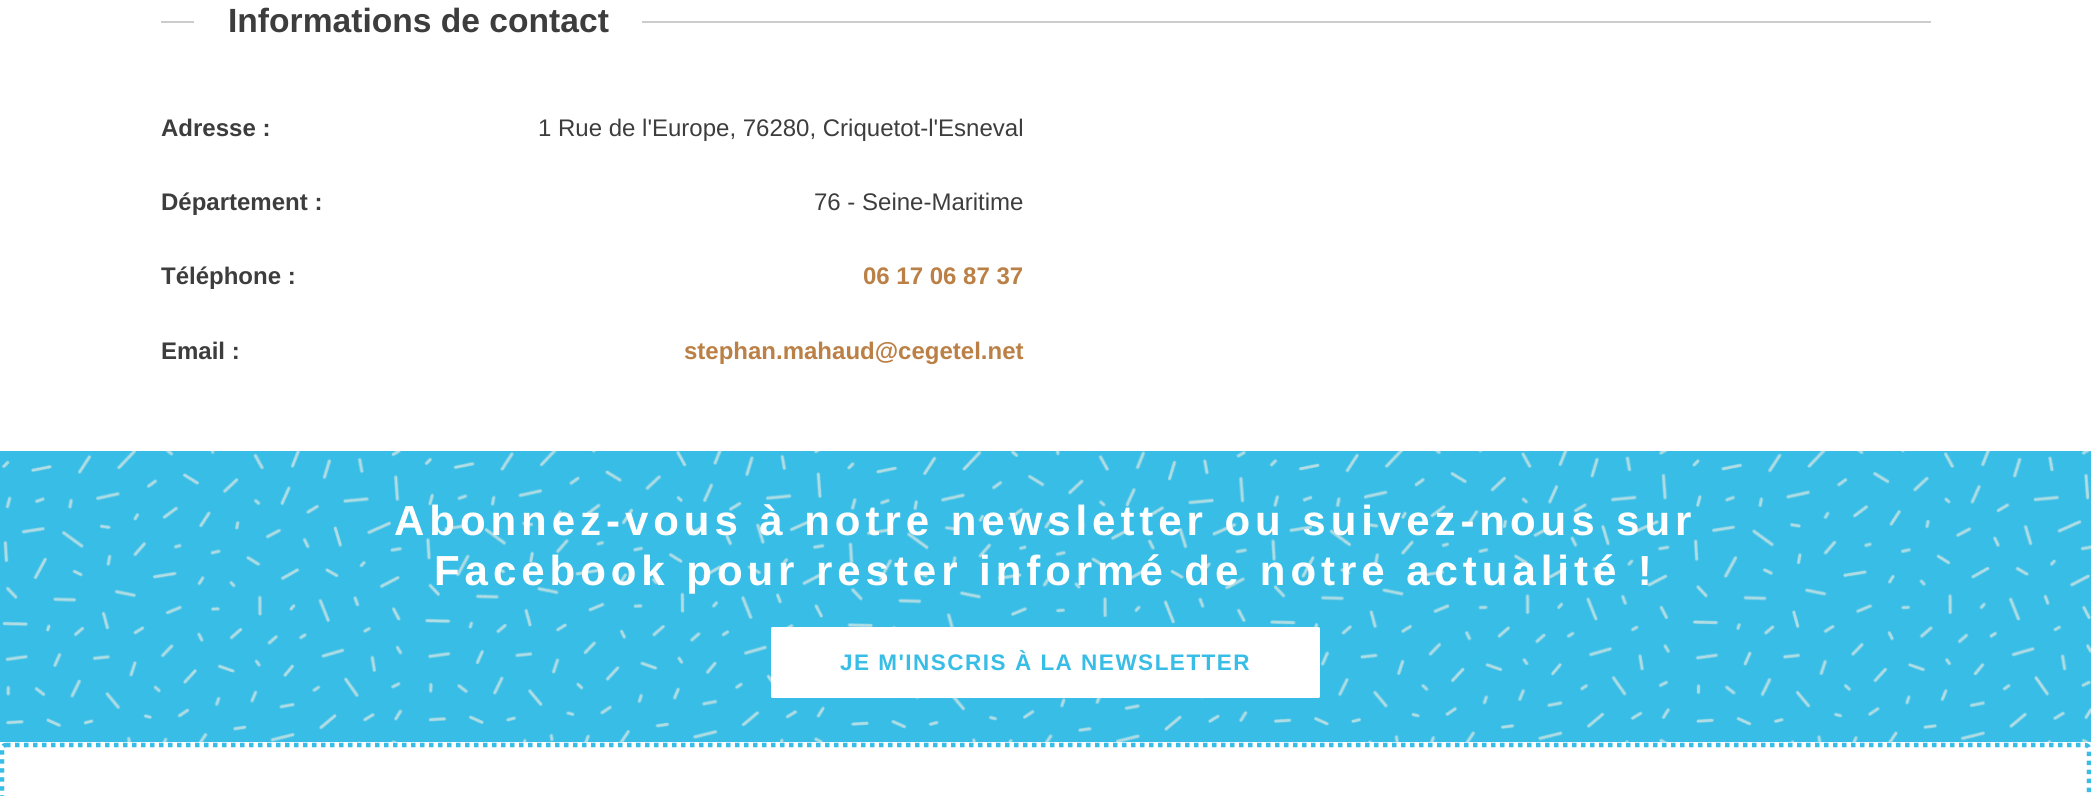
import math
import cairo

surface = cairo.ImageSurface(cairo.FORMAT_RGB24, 2091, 796)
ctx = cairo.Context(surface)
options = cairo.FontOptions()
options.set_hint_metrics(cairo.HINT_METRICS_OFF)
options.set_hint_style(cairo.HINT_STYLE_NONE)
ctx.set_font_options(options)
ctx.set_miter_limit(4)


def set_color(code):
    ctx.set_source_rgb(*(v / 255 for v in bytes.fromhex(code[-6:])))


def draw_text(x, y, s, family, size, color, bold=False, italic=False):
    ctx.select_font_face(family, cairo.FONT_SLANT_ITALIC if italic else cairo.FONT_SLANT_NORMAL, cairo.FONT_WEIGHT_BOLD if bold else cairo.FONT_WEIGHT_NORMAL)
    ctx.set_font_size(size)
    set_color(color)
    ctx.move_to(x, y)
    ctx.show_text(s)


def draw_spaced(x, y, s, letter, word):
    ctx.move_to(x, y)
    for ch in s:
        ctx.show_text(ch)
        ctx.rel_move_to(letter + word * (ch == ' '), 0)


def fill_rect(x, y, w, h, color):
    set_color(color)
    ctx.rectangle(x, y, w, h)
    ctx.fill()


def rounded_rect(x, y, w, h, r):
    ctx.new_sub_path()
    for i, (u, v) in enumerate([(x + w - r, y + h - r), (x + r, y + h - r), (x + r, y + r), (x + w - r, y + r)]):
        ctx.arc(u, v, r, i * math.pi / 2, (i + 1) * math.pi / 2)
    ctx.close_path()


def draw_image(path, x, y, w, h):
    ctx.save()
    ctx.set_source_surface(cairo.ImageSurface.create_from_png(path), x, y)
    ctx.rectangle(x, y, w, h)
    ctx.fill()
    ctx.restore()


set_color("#ffffff")
ctx.paint()
fill_rect(161, 21, 1770, 2, "#cccccc")
fill_rect(194, 21, 448, 2, "#ffffff")
draw_text(228, 32, "Informations de contact", "Liberation Sans", 33.6, "#3d3d3d", bold=True)
draw_text(161, 136, "Adresse :", "Liberation Sans", 24, "#3d3d3d", bold=True)
draw_text(538, 136, "1 Rue de l'Europe, 76280, Criquetot-l'Esneval", "Liberation Sans", 24, "#3d3d3d")
draw_text(161, 210, "Département :", "Liberation Sans", 24, "#3d3d3d", bold=True)
draw_text(814, 210, "76 - Seine-Maritime", "Liberation Sans", 24, "#3d3d3d")
draw_text(161, 284, "Téléphone :", "Liberation Sans", 24, "#3d3d3d", bold=True)
draw_text(863, 284, "06 17 06 87 37", "Liberation Sans", 24, "#bb8045", bold=True)
draw_text(161, 359, "Email :", "Liberation Sans", 24, "#3d3d3d", bold=True)
draw_text(684, 359, "stephan.mahaud@cegetel.net", "Liberation Sans", 24, "#bb8045", bold=True)
draw_image("assets/img1.png", 0, 451, 2091, 291)
ctx.set_font_size(42)
set_color("#ffffff")
draw_spaced(394, 535, "Abonnez-vous à notre newsletter ou suivez-nous sur", 4.95, 0)
draw_spaced(434, 585, "Facebook pour rester informé de notre actualité !", 4.95, 0)
rounded_rect(772, 628, 547, 69, 0.5)
ctx.fill_preserve()
ctx.stroke()
ctx.set_font_size(22.5)
set_color("#37bde6")
draw_spaced(840, 670, "JE M'INSCRIS À LA NEWSLETTER", 1.5, 0)
ctx.new_path()
ctx.move_to(6, 745)
ctx.line_to(2085, 745)
ctx.curve_to(2087, 745, 2089, 746.5, 2089, 748.5)
ctx.line_to(2089, 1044)
ctx.curve_to(2089, 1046, 2087, 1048, 2085, 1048)
ctx.line_to(6, 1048)
ctx.curve_to(4, 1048, 2, 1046, 2, 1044)
ctx.line_to(2, 748.5)
ctx.curve_to(2, 746.5, 4, 745, 6, 745)
ctx.close_path()
ctx.set_line_width(4.5)
ctx.set_dash([4.5, 4.5])
ctx.stroke()
surface.write_to_png("output.png")
